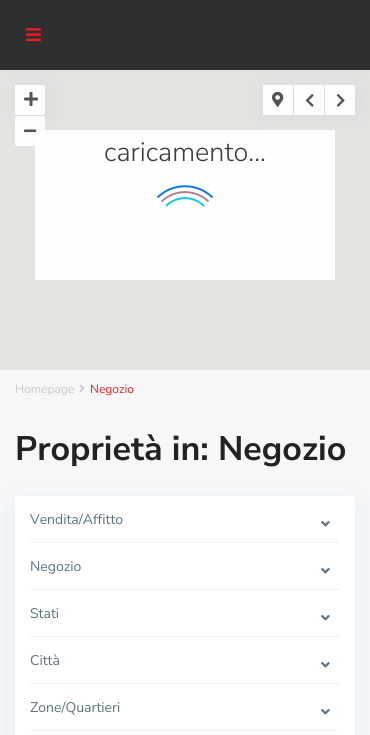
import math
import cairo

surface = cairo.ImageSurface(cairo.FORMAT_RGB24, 370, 735)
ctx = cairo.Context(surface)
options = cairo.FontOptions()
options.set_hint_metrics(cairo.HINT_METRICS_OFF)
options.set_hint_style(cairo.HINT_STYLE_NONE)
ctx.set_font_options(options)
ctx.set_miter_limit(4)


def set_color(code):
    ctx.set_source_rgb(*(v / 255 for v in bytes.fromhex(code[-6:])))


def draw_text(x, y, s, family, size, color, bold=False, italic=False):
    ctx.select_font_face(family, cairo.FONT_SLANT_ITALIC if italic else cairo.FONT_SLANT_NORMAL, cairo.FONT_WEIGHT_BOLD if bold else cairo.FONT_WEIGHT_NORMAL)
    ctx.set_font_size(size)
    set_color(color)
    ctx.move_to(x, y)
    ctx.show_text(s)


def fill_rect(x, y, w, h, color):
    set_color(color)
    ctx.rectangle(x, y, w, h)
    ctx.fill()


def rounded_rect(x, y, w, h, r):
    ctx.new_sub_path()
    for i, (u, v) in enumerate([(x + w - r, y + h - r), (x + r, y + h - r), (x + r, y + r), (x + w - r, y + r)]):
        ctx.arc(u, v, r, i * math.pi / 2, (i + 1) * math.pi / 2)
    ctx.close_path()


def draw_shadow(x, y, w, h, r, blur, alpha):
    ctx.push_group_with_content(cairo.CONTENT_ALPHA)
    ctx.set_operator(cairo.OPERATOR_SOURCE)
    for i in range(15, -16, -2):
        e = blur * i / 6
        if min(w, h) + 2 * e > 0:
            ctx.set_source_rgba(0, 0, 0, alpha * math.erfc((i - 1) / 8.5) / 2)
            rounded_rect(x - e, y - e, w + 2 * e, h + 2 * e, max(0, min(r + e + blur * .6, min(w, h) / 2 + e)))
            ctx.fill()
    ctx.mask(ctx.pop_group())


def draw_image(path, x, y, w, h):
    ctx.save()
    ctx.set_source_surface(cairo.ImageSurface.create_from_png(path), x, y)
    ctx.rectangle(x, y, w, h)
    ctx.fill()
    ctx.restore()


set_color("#f7f7f7")
ctx.paint()
fill_rect(0, 70, 370, 300, "#e5e3df")
fill_rect(35, 130, 300, 150, "#fefefd")
set_color("#006ee1")
draw_shadow(18, 86, 30, 30, 2, 10, 0.07)
draw_shadow(265, 86, 93, 30, 0, 10, 0.07)
fill_rect(0, 0, 370, 70, "#2f2f2f")
draw_image("assets/img1.png", 26, 28, 15, 14)
set_color("#fdfdfc")
rounded_rect(15, 85, 30, 30, 2)
ctx.fill()
draw_image("assets/img2.png", 24, 92, 14, 14)
fill_rect(263, 85, 30, 30, "#fdfdfc")
draw_image("assets/img3.png", 272, 91, 12, 16)
fill_rect(294, 85, 30, 30, "#fdfdfc")
draw_image("assets/img4.png", 305, 94, 9, 13)
fill_rect(325, 85, 30, 30, "#fdfdfc")
draw_image("assets/img5.png", 336, 94, 9, 13)
ctx.set_source_rgba(1, 1, 1, 0.92)
rounded_rect(15, 116, 30, 30, 2)
ctx.fill()
draw_image("assets/img6.png", 24, 129, 13, 4)
draw_text(104, 161, "caricamento...", "Nunito Sans Light", 27, "#3c3c3c")
ctx.new_path()
ctx.move_to(157.5, 197.5)
ctx.curve_to(172.5, 182.5, 197.5, 182.5, 212.5, 197.5)
set_color("#0b79e1")
ctx.stroke()
ctx.new_path()
ctx.move_to(161.5, 201.5)
ctx.curve_to(174.5, 189, 195.5, 189, 208.5, 201.5)
set_color("#b38290")
ctx.stroke()
ctx.new_path()
ctx.move_to(166, 206)
ctx.curve_to(176.5, 195.5, 193.5, 195.5, 204, 206)
set_color("#18c5f7")
ctx.stroke()
draw_text(15, 393, "Homepage", "Nunito Sans", 12, "#c9c9c9")
draw_image("assets/img7.png", 79, 384, 6, 9)
draw_text(90, 393, "Negozio", "Nunito Sans", 12, "#ee1c25")
draw_text(15, 460, "Proprietà in: Negozio", "Nunito Sans", 34, "#222222", bold=True)
set_color("#0798ff")
draw_shadow(15, 506, 340, 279, 3, 15.5, 0.09)
set_color("#ffffff")
rounded_rect(15, 496, 340, 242, 3)
ctx.fill()
fill_rect(30, 542, 310, 1, "#f0f0f0")
draw_text(30, 524, "Vendita/Affitto", "Nunito Sans", 14, "#5c727d")
draw_image("assets/img8.png", 321, 521, 9, 6)
fill_rect(30, 589, 310, 1, "#f0f0f0")
draw_text(30, 571, "Negozio", "Nunito Sans", 14, "#5c727d")
draw_image("assets/img8.png", 321, 568, 9, 6)
fill_rect(30, 636, 310, 1, "#f0f0f0")
draw_text(30, 618, "Stati", "Nunito Sans", 14, "#5c727d")
draw_image("assets/img8.png", 321, 615, 9, 6)
fill_rect(30, 683, 310, 1, "#f0f0f0")
draw_text(30, 665, "Città", "Nunito Sans", 14, "#5c727d")
draw_image("assets/img8.png", 321, 662, 9, 6)
fill_rect(30, 730, 310, 1, "#f0f0f0")
draw_text(30, 712, "Zone/Quartieri", "Nunito Sans", 14, "#5c727d")
draw_image("assets/img8.png", 321, 709, 9, 6)
surface.write_to_png("output.png")
